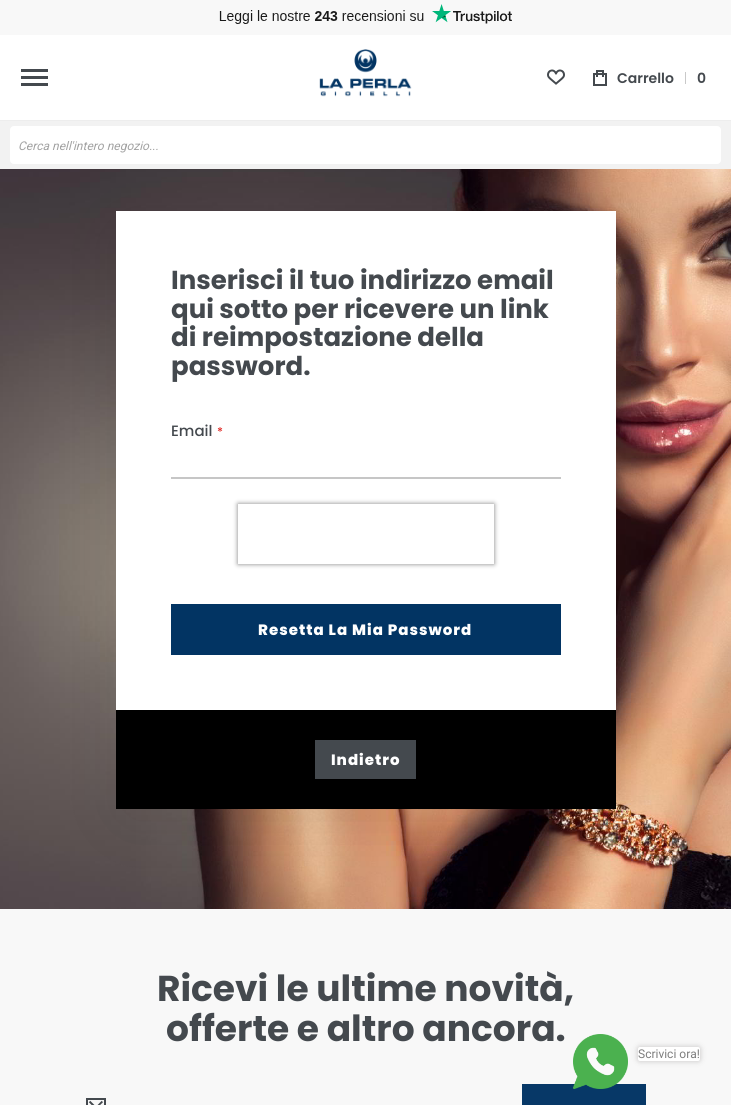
import math
import cairo

surface = cairo.ImageSurface(cairo.FORMAT_RGB24, 731, 1105)
ctx = cairo.Context(surface)
options = cairo.FontOptions()
options.set_hint_metrics(cairo.HINT_METRICS_OFF)
options.set_hint_style(cairo.HINT_STYLE_NONE)
ctx.set_font_options(options)
ctx.set_miter_limit(4)


def set_color(code):
    ctx.set_source_rgb(*(v / 255 for v in bytes.fromhex(code[-6:])))


def draw_text(x, y, s, family, size, color, bold=False, italic=False):
    ctx.select_font_face(family, cairo.FONT_SLANT_ITALIC if italic else cairo.FONT_SLANT_NORMAL, cairo.FONT_WEIGHT_BOLD if bold else cairo.FONT_WEIGHT_NORMAL)
    ctx.set_font_size(size)
    set_color(color)
    ctx.move_to(x, y)
    ctx.show_text(s)


def draw_spaced(x, y, s, letter, word):
    ctx.move_to(x, y)
    for ch in s:
        ctx.show_text(ch)
        ctx.rel_move_to(letter + word * (ch == ' '), 0)


def fill_rect(x, y, w, h, color):
    set_color(color)
    ctx.rectangle(x, y, w, h)
    ctx.fill()


def rounded_rect(x, y, w, h, r):
    ctx.new_sub_path()
    for i, (u, v) in enumerate([(x + w - r, y + h - r), (x + r, y + h - r), (x + r, y + r), (x + w - r, y + r)]):
        ctx.arc(u, v, r, i * math.pi / 2, (i + 1) * math.pi / 2)
    ctx.close_path()


def draw_shadow(x, y, w, h, r, blur, alpha):
    ctx.push_group_with_content(cairo.CONTENT_ALPHA)
    ctx.set_operator(cairo.OPERATOR_SOURCE)
    for i in range(15, -16, -2):
        e = blur * i / 6
        if min(w, h) + 2 * e > 0:
            ctx.set_source_rgba(0, 0, 0, alpha * math.erfc((i - 1) / 8.5) / 2)
            rounded_rect(x - e, y - e, w + 2 * e, h + 2 * e, max(0, min(r + e + blur * .6, min(w, h) / 2 + e)))
            ctx.fill()
    ctx.mask(ctx.pop_group())


def draw_image(path, x, y, w, h):
    ctx.save()
    ctx.set_source_surface(cairo.ImageSurface.create_from_png(path), x, y)
    ctx.rectangle(x, y, w, h)
    ctx.fill()
    ctx.restore()


set_color("#ffffff")
ctx.paint()
fill_rect(0, 120, 731, 1, "#ededed")
fill_rect(0, 0, 731, 35, "#f8f8f8")
draw_image("assets/img1.png", 219, 4, 293, 20)
fill_rect(21, 69, 27, 3, "#44494e")
fill_rect(21, 76, 27, 3, "#44494e")
fill_rect(21, 83, 27, 3, "#44494e")
draw_image("assets/img2.png", 319, 49, 93, 48)
draw_image("assets/img3.png", 547, 69, 18, 16)
draw_image("assets/img4.png", 593, 70, 14, 16)
draw_text(617, 83, "Carrello", "Poppins SemiBold", 14, "#44494e")
fill_rect(685, 72, 1, 12, "#c9c9c9")
draw_text(697, 83, "0", "Poppins SemiBold", 14, "#44494e")
draw_image("assets/img5.png", 0, 169, 731, 740)
set_color("#000000")
draw_shadow(124, 234, 484, 582, 0, 35, 0.11)
fill_rect(0, 121, 731, 48, "#f2f2f2")
set_color("#ffffff")
rounded_rect(10, 126, 711, 38, 4)
ctx.fill()
draw_text(18, 150, "Cerca nell'intero negozio...", "Roboto", 12, "#a2a2a2", italic=True)
fill_rect(116, 211, 500, 499, "#ffffff")
draw_text(171, 289, "Inserisci il tuo indirizzo email", "Poppins", 26, "#44494e", bold=True)
draw_text(171, 318, "qui sotto per ricevere un link", "Poppins", 26, "#44494e", bold=True)
draw_text(171, 346, "di reimpostazione della", "Poppins", 26, "#44494e", bold=True)
draw_text(171, 375, "password.", "Poppins", 26, "#44494e", bold=True)
draw_text(171, 436, "Email", "Poppins Medium", 15, "#44494e")
draw_text(217, 436, "*", "Poppins Medium", 12, "#e02b27")
fill_rect(171, 477, 390, 2, "#c6c6c6")
ctx.save()
ctx.set_fill_rule(cairo.FILL_RULE_EVEN_ODD)
ctx.new_path()
ctx.move_to(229, 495)
ctx.line_to(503, 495)
ctx.line_to(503, 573)
ctx.line_to(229, 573)
ctx.close_path()
ctx.move_to(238, 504)
ctx.line_to(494, 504)
ctx.line_to(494, 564)
ctx.line_to(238, 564)
ctx.close_path()
ctx.clip()
set_color("#808080")
draw_shadow(238, 504, 256, 60, 0, 2.5, 1)
ctx.restore()
fill_rect(171, 604, 390, 51, "#023463")
ctx.select_font_face("Poppins ExtraBold")
ctx.set_font_size(15)
set_color("#ffffff")
draw_spaced(258, 635, "Resetta La Mia Password", 1, 0)
fill_rect(116, 710, 500, 99, "#000000")
fill_rect(315, 740, 101, 39, "#44494e")
set_color("#ffffff")
draw_spaced(331, 765, "Indietro", 1, 0)
fill_rect(0, 909, 731, 196, "#f8f8f8")
draw_text(157, 1001, "Ricevi le ultime novità,", "Poppins", 36, "#44494e", bold=True)
draw_text(166, 1041, "offerte e altro ancora.", "Poppins", 36, "#44494e", bold=True)
draw_image("assets/img6.png", 86, 1098, 20, 7)
fill_rect(522, 1084, 124, 21, "#073867")
draw_image("assets/img7.png", 573, 1034, 55, 55)
set_color("#d2d1d1")
draw_shadow(637, 1046, 64, 16, 3, 2.5, 1)
set_color("#ffffff")
rounded_rect(638, 1047, 62, 14, 2)
ctx.fill()
draw_text(638, 1058, "Scrivici ora!", "Roboto", 12, "#7d7d7d")
surface.write_to_png("output.png")
